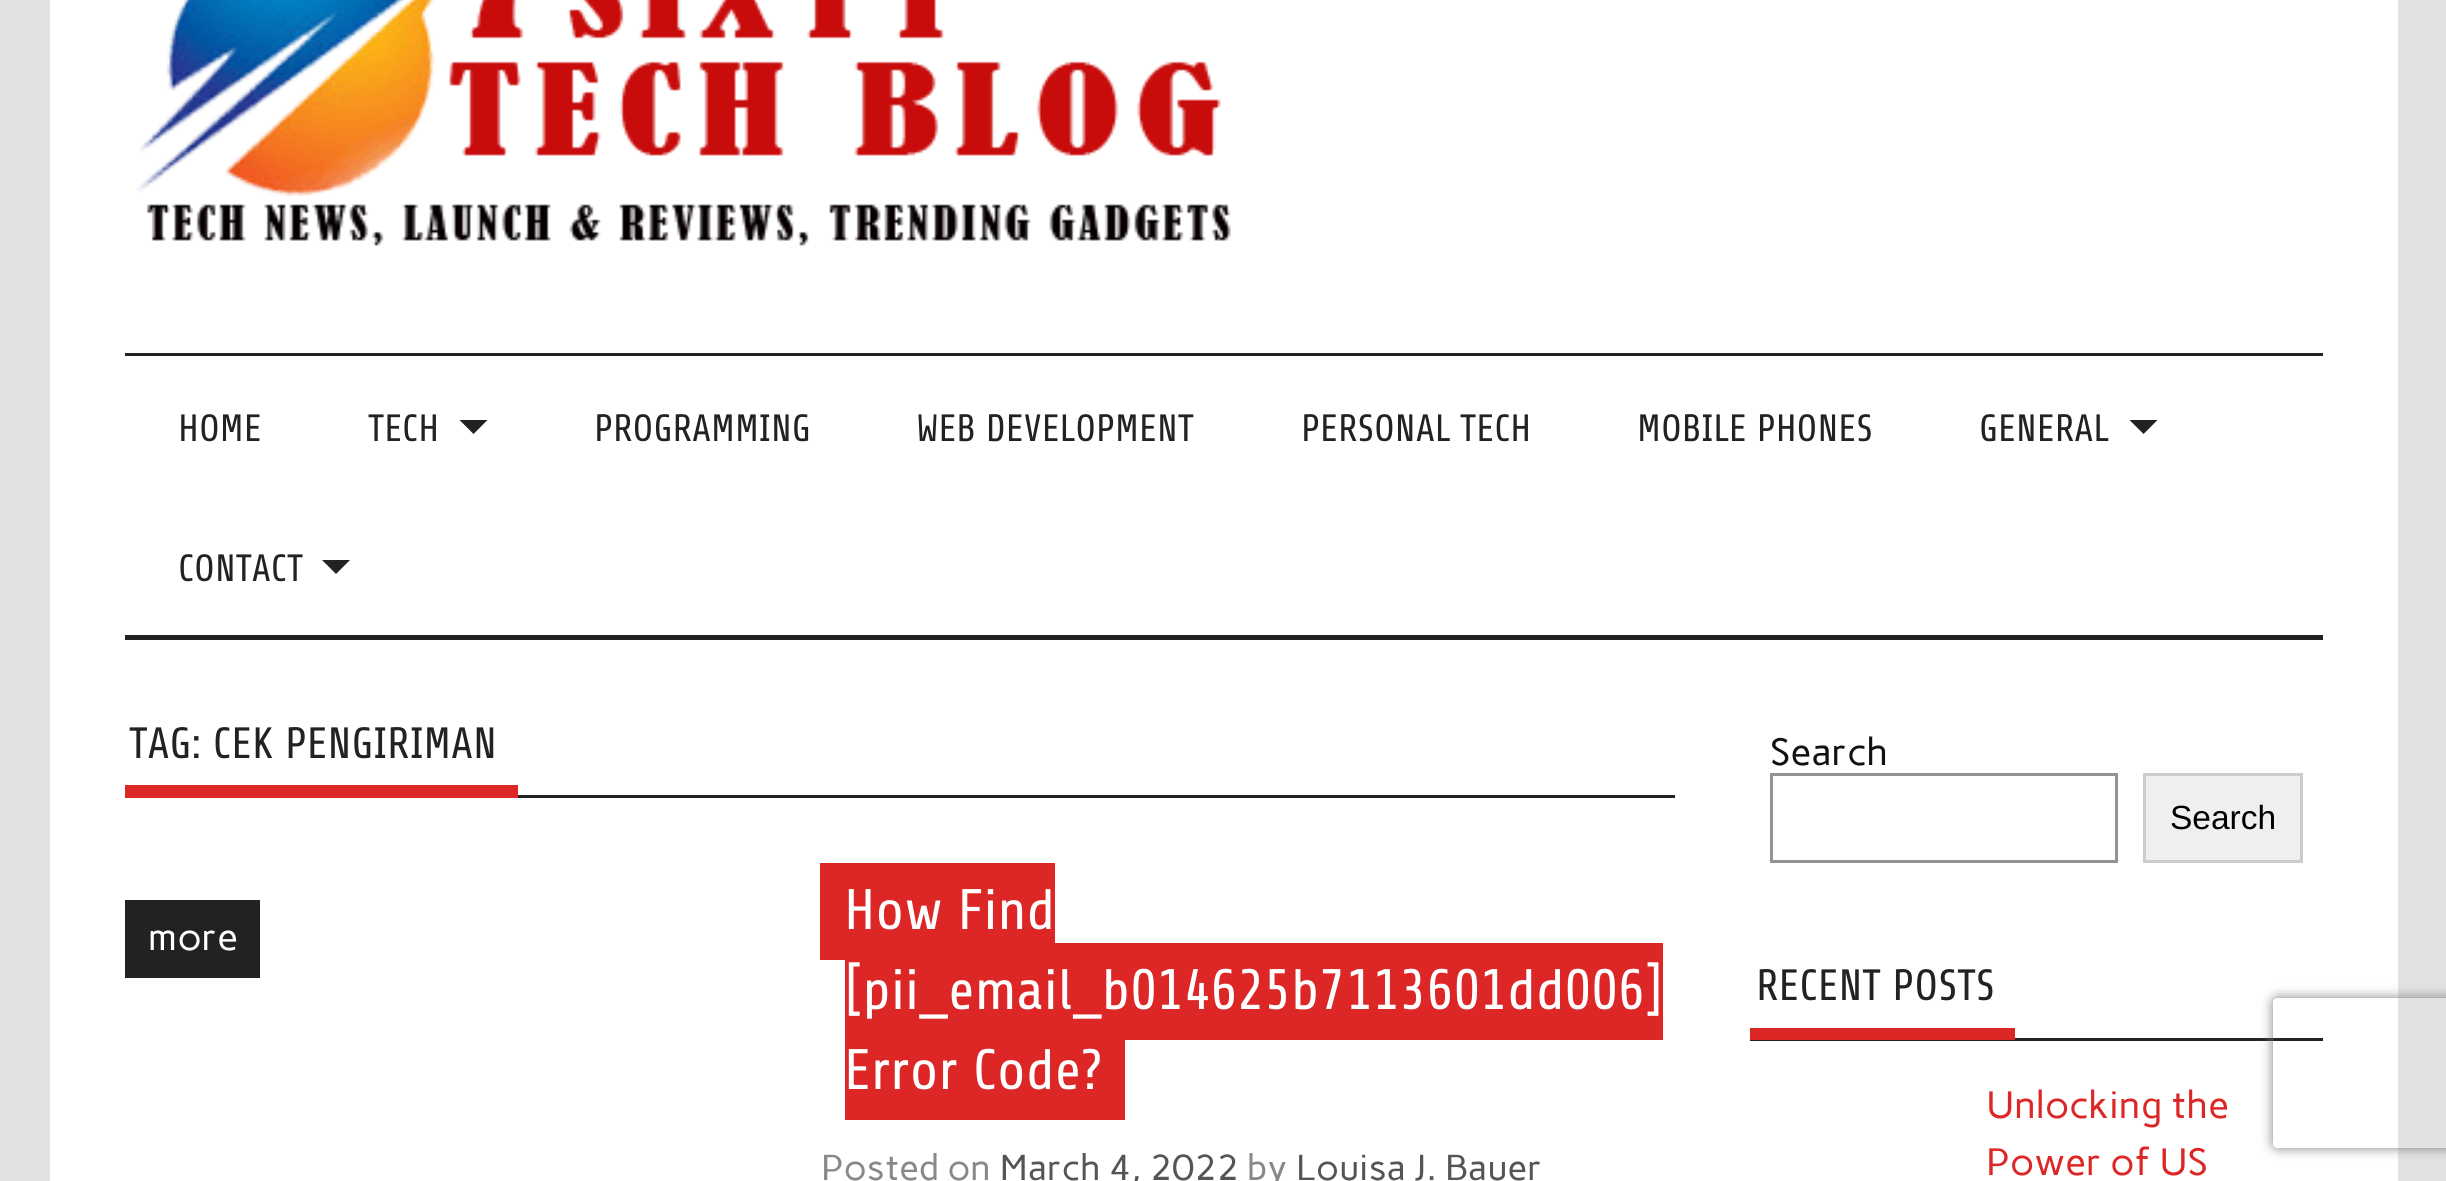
import math
import cairo

surface = cairo.ImageSurface(cairo.FORMAT_RGB24, 2446, 1181)
ctx = cairo.Context(surface)
options = cairo.FontOptions()
options.set_hint_metrics(cairo.HINT_METRICS_OFF)
options.set_hint_style(cairo.HINT_STYLE_NONE)
ctx.set_font_options(options)
ctx.set_miter_limit(4)


def set_color(code):
    ctx.set_source_rgb(*(v / 255 for v in bytes.fromhex(code[-6:])))


def draw_text(x, y, s, family, size, color, bold=False, italic=False):
    ctx.select_font_face(family, cairo.FONT_SLANT_ITALIC if italic else cairo.FONT_SLANT_NORMAL, cairo.FONT_WEIGHT_BOLD if bold else cairo.FONT_WEIGHT_NORMAL)
    ctx.set_font_size(size)
    set_color(color)
    ctx.move_to(x, y)
    ctx.show_text(s)


def fill_rect(x, y, w, h, color):
    set_color(color)
    ctx.rectangle(x, y, w, h)
    ctx.fill()


def rounded_rect(x, y, w, h, r):
    ctx.new_sub_path()
    for i, (u, v) in enumerate([(x + w - r, y + h - r), (x + r, y + h - r), (x + r, y + r), (x + w - r, y + r)]):
        ctx.arc(u, v, r, i * math.pi / 2, (i + 1) * math.pi / 2)
    ctx.close_path()


def draw_shadow(x, y, w, h, r, blur, alpha):
    ctx.push_group_with_content(cairo.CONTENT_ALPHA)
    ctx.set_operator(cairo.OPERATOR_SOURCE)
    for i in range(15, -16, -2):
        e = blur * i / 6
        if min(w, h) + 2 * e > 0:
            ctx.set_source_rgba(0, 0, 0, alpha * math.erfc((i - 1) / 8.5) / 2)
            rounded_rect(x - e, y - e, w + 2 * e, h + 2 * e, max(0, min(r + e + blur * .6, min(w, h) / 2 + e)))
            ctx.fill()
    ctx.mask(ctx.pop_group())


def draw_image(path, x, y, w, h):
    ctx.save()
    ctx.set_source_surface(cairo.ImageSurface.create_from_png(path), x, y)
    ctx.rectangle(x, y, w, h)
    ctx.fill()
    ctx.restore()


set_color("#e2e2e2")
ctx.paint()
fill_rect(50, 0, 2348, 1181, "#ffffff")
draw_image("assets/img1.png", 136, 0, 1095, 246)
fill_rect(125, 353, 2198, 3, "#222222")
fill_rect(125, 635, 2198, 5, "#222222")
draw_text(178, 441, "HOME", "Share", 38, "#222222")
draw_text(368, 441, "TECH", "Share", 38, "#222222")
ctx.new_path()
ctx.move_to(459.5, 420)
ctx.line_to(487.5, 420)
ctx.line_to(473.5, 434)
ctx.close_path()
ctx.fill()
draw_text(594, 441, "PROGRAMMING", "Share", 38, "#222222")
draw_text(916, 441, "WEB DEVELOPMENT", "Share", 38, "#222222")
draw_text(1301, 441, "PERSONAL TECH", "Share", 38, "#222222")
draw_text(1637, 441, "MOBILE PHONES", "Share", 38, "#222222")
draw_text(1979, 441, "GENERAL", "Share", 38, "#222222")
ctx.new_path()
ctx.move_to(2129.5, 420)
ctx.line_to(2157.5, 420)
ctx.line_to(2143.5, 434)
ctx.close_path()
ctx.fill()
draw_text(178, 581, "CONTACT", "Share", 38, "#222222")
ctx.new_path()
ctx.move_to(322, 560)
ctx.line_to(350, 560)
ctx.line_to(336, 574)
ctx.close_path()
ctx.fill()
fill_rect(518, 795, 1157, 3, "#222222")
fill_rect(125, 785, 393, 13, "#dd2727")
draw_text(129, 758, "TAG: CEK PENGIRIMAN", "Share", 43.75, "#222222")
fill_rect(125, 900, 135, 78, "#222222")
draw_text(148, 950, "more", "Carme", 38, "#ffffff")
fill_rect(820, 863, 235, 97, "#dd2727")
draw_text(844, 929, "How Find", "Share", 57, "#ffffff")
fill_rect(845, 943, 818, 97, "#dd2727")
draw_text(844, 1009, "[pii_email_b014625b7113601dd006]", "Share", 57, "#ffffff")
fill_rect(845, 1040, 280, 80, "#dd2727")
draw_text(844, 1089, "Error Code?", "Share", 57, "#ffffff")
draw_text(821, 1180, "Posted on", "Carme", 36, "#888888")
draw_text(1000, 1180, "March 4, 2022", "Carme", 36, "#555555")
draw_text(1247, 1180, "by", "Carme", 36, "#888888")
draw_text(1296, 1180, "Louisa J. Bauer", "Carme", 36, "#555555")
draw_text(1770, 765, "Search", "Carme", 38, "#111111")
ctx.rectangle(1771.5, 774.5, 345, 87)
set_color("#949494")
ctx.set_line_width(3)
ctx.stroke()
set_color("#efefef")
ctx.rectangle(2144.5, 774.5, 157, 87)
ctx.fill_preserve()
set_color("#cccccc")
ctx.stroke()
draw_text(2170, 829, "Search", "Liberation Sans", 33.5, "#000000")
fill_rect(1750, 1038, 573, 3, "#222222")
fill_rect(1750, 1028, 265, 12, "#dd2727")
draw_text(1756, 1000, "RECENT POSTS", "Share", 43.75, "#222222")
draw_text(1986, 1118, "Unlocking the", "Carme", 38, "#dd2727")
draw_text(1986, 1175, "Power of US", "Carme", 38, "#dd2727")
ctx.save()
ctx.set_fill_rule(cairo.FILL_RULE_EVEN_ODD)
ctx.new_path()
ctx.move_to(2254, 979)
ctx.line_to(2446, 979)
ctx.line_to(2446, 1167)
ctx.line_to(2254, 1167)
ctx.close_path()
ctx.move_to(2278, 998)
ctx.line_to(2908, 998)
ctx.curve_to(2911, 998, 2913, 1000, 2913, 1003)
ctx.line_to(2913, 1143)
ctx.curve_to(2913, 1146, 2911, 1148, 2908, 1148)
ctx.line_to(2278, 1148)
ctx.curve_to(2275, 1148, 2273, 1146, 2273, 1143)
ctx.line_to(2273, 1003)
ctx.curve_to(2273, 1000, 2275, 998, 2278, 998)
ctx.close_path()
ctx.clip()
set_color("#808080")
draw_shadow(2273, 998, 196, 150, 5, 6, 1)
ctx.restore()
surface.write_to_png("output.png")
